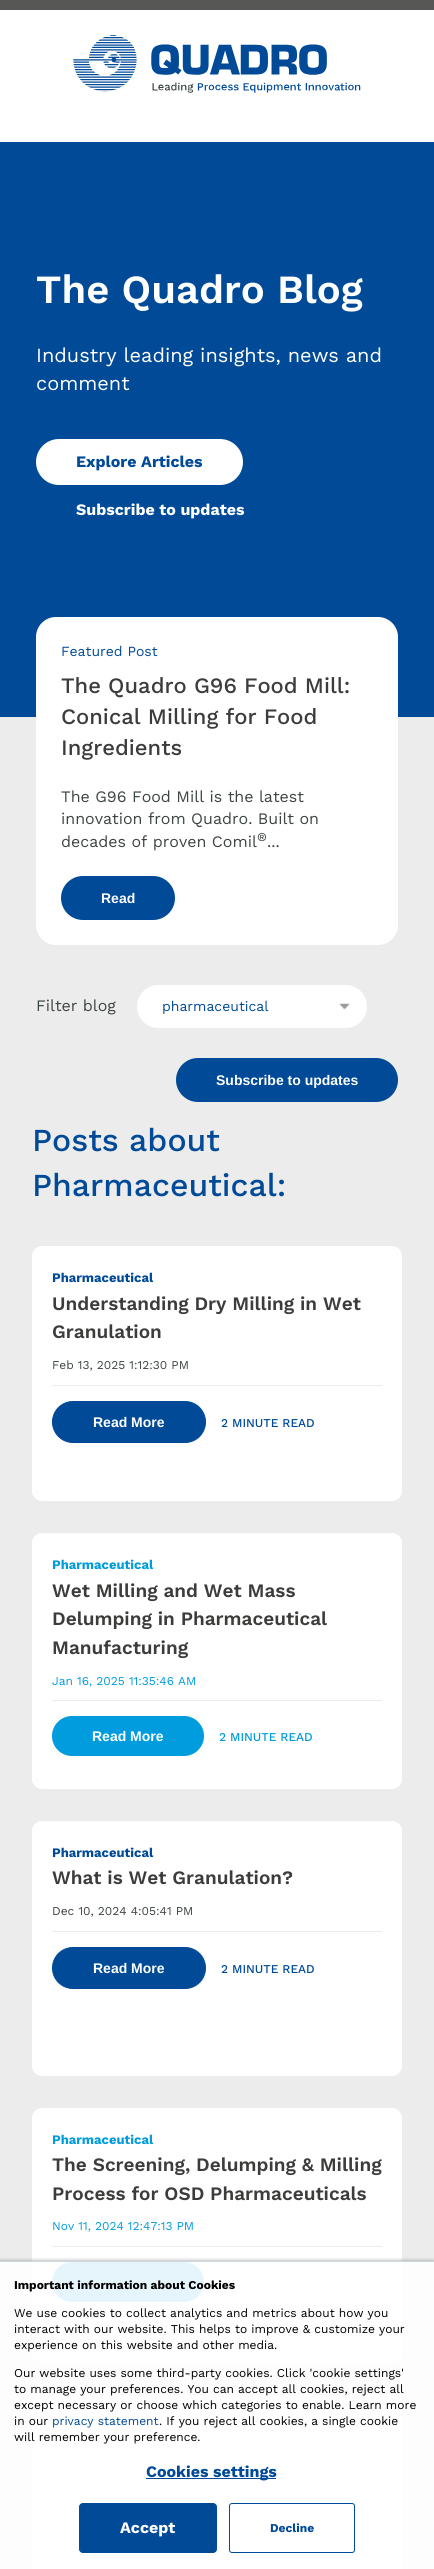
import math
import cairo

surface = cairo.ImageSurface(cairo.FORMAT_RGB24, 434, 2569)
ctx = cairo.Context(surface)
options = cairo.FontOptions()
options.set_hint_metrics(cairo.HINT_METRICS_OFF)
options.set_hint_style(cairo.HINT_STYLE_NONE)
ctx.set_font_options(options)
ctx.set_miter_limit(4)


def set_color(code):
    ctx.set_source_rgb(*(v / 255 for v in bytes.fromhex(code[-6:])))


def draw_text(x, y, s, family, size, color, bold=False, italic=False):
    ctx.select_font_face(family, cairo.FONT_SLANT_ITALIC if italic else cairo.FONT_SLANT_NORMAL, cairo.FONT_WEIGHT_BOLD if bold else cairo.FONT_WEIGHT_NORMAL)
    ctx.set_font_size(size)
    set_color(color)
    ctx.move_to(x, y)
    ctx.show_text(s)


def fill_rect(x, y, w, h, color):
    set_color(color)
    ctx.rectangle(x, y, w, h)
    ctx.fill()


def rounded_rect(x, y, w, h, r):
    ctx.new_sub_path()
    for i, (u, v) in enumerate([(x + w - r, y + h - r), (x + r, y + h - r), (x + r, y + r), (x + w - r, y + r)]):
        ctx.arc(u, v, r, i * math.pi / 2, (i + 1) * math.pi / 2)
    ctx.close_path()


def draw_shadow(x, y, w, h, r, blur, alpha):
    ctx.push_group_with_content(cairo.CONTENT_ALPHA)
    ctx.set_operator(cairo.OPERATOR_SOURCE)
    for i in range(15, -16, -2):
        e = blur * i / 6
        if min(w, h) + 2 * e > 0:
            ctx.set_source_rgba(0, 0, 0, alpha * math.erfc((i - 1) / 8.5) / 2)
            rounded_rect(x - e, y - e, w + 2 * e, h + 2 * e, max(0, min(r + e + blur * .6, min(w, h) / 2 + e)))
            ctx.fill()
    ctx.mask(ctx.pop_group())


def draw_image(path, x, y, w, h):
    ctx.save()
    ctx.set_source_surface(cairo.ImageSurface.create_from_png(path), x, y)
    ctx.rectangle(x, y, w, h)
    ctx.fill()
    ctx.restore()


set_color("#ffffff")
ctx.paint()
fill_rect(0, 0, 434, 10, "#575756")
draw_image("assets/img1.png", 73, 35, 288, 58)
fill_rect(0, 142, 434, 575, "#004a98")
draw_text(36, 303, "The Quadro Blog", "Work Sans SemiBold", 40, "#ffffff")
draw_text(36, 362, "Industry leading insights, news and", "Work Sans", 20, "#ffffff")
draw_text(36, 390, "comment", "Work Sans", 20, "#ffffff")
rounded_rect(36, 439, 207, 46, 23)
ctx.fill()
draw_text(76, 467, "Explore Articles", "Work Sans", 16, "#004a98", bold=True)
draw_text(76, 515, "Subscribe to updates", "Work Sans", 16, "#ffffff", bold=True)
fill_rect(0, 717, 434, 1852, "#ececec")
set_color("#ffffff")
rounded_rect(36, 617, 362, 328, 20)
ctx.fill()
draw_text(61, 656, "Featured Post", "Work Sans", 14, "#004a98")
draw_text(61, 693, "The Quadro G96 Food Mill:", "Work Sans Medium", 22, "#3c3c3b")
draw_text(61, 724, "Conical Milling for Food", "Work Sans Medium", 22, "#3c3c3b")
draw_text(61, 755, "Ingredients", "Work Sans Medium", 22, "#3c3c3b")
draw_text(61, 802, "The G96 Food Mill is the latest", "Work Sans", 16, "#3d4543")
draw_text(61, 824, "innovation from Quadro. Built on", "Work Sans", 16, "#3d4543")
draw_text(61, 847, "decades of proven Comil", "Work Sans", 16, "#3d4543")
draw_text(257, 841, "®", "Work Sans", 12, "#3d4543")
draw_text(267, 847, "...", "Work Sans", 16, "#3d4543")
set_color("#004a98")
rounded_rect(61, 876, 114, 44, 22)
ctx.fill()
draw_text(101, 903, "Read", "Liberation Sans", 14, "#ffffff", bold=True)
draw_text(36, 1011, "Filter blog", "Work Sans", 16, "#3d4543")
set_color("#ffffff")
rounded_rect(137, 985, 230, 43, 21.5)
ctx.fill()
draw_image("assets/img2.png", 339, 1003, 11, 7)
draw_text(162, 1011, "pharmaceutical", "Work Sans", 14, "#004a98")
rounded_rect(176, 1058, 222, 44, 22)
ctx.fill()
draw_text(216, 1085, "Subscribe to updates", "Liberation Sans", 14, "#ffffff", bold=True)
draw_text(32, 1151, "Posts about", "Work Sans Medium", 32, "#004a98")
draw_text(32, 1196, "Pharmaceutical:", "Work Sans Medium", 32, "#004a98")
set_color("#ffffff")
rounded_rect(32, 1246, 370, 255, 10)
ctx.fill()
draw_text(52, 1282, "Pharmaceutical", "Work Sans", 13, "#004a98", bold=True)
draw_text(52, 1310, "Understanding Dry Milling in Wet", "Work Sans SemiBold", 19, "#3c3c3b")
draw_text(52, 1338, "Granulation", "Work Sans SemiBold", 19, "#3c3c3b")
draw_text(52, 1369, "Feb 13, 2025 1:12:30 PM", "Work Sans", 12, "#3d4543")
fill_rect(52, 1385, 330, 1, "#ececec")
set_color("#004a98")
rounded_rect(52.5, 1401.5, 153, 41, 20.5)
ctx.fill_preserve()
ctx.set_line_width(1)
ctx.stroke()
draw_text(93, 1427, "Read More", "Liberation Sans", 14, "#ffffff", bold=True)
draw_text(221, 1427, "2 MINUTE READ", "Work Sans Medium", 12, "#004a98")
set_color("#ffffff")
rounded_rect(32, 1533, 370, 256, 10)
ctx.fill()
draw_text(52, 1569, "Pharmaceutical", "Work Sans", 13, "#009cde", bold=True)
draw_text(52, 1597, "Wet Milling and Wet Mass", "Work Sans SemiBold", 19, "#3c3c3b")
draw_text(52, 1625, "Delumping in Pharmaceutical", "Work Sans SemiBold", 19, "#3c3c3b")
draw_text(52, 1654, "Manufacturing", "Work Sans SemiBold", 19, "#3c3c3b")
draw_text(52, 1685, "Jan 16, 2025 11:35:46 AM", "Work Sans", 12, "#009cde")
fill_rect(52, 1700, 330, 1, "#ececec")
set_color("#009cde")
rounded_rect(52, 1716, 152, 40, 20)
ctx.fill()
draw_text(92, 1741, "Read More", "Liberation Sans", 14, "#ffffff", bold=True)
draw_text(219, 1741, "2 MINUTE READ", "Work Sans Medium", 12, "#009cde")
set_color("#ffffff")
rounded_rect(32, 1821, 370, 255, 10)
ctx.fill()
draw_text(52, 1857, "Pharmaceutical", "Work Sans", 13, "#004a98", bold=True)
draw_text(52, 1884, "What is Wet Granulation?", "Work Sans SemiBold", 19, "#3c3c3b")
draw_text(52, 1915, "Dec 10, 2024 4:05:41 PM", "Work Sans", 12, "#3d4543")
fill_rect(52, 1931, 330, 1, "#ececec")
set_color("#004a98")
rounded_rect(52.5, 1947.5, 153, 41, 20.5)
ctx.fill_preserve()
ctx.stroke()
draw_text(93, 1973, "Read More", "Liberation Sans", 14, "#ffffff", bold=True)
draw_text(221, 1973, "2 MINUTE READ", "Work Sans Medium", 12, "#004a98")
set_color("#ffffff")
rounded_rect(32, 2108, 370, 255, 10)
ctx.fill()
draw_text(52, 2144, "Pharmaceutical", "Work Sans", 13, "#009cde", bold=True)
draw_text(52, 2171, "The Screening, Delumping & Milling", "Work Sans SemiBold", 19, "#3c3c3b")
draw_text(52, 2200, "Process for OSD Pharmaceuticals", "Work Sans SemiBold", 19, "#3c3c3b")
draw_text(52, 2230, "Nov 11, 2024 12:47:13 PM", "Work Sans", 12, "#009cde")
fill_rect(52, 2246, 330, 1, "#ececec")
set_color("#009cde")
rounded_rect(52, 2262, 152, 40, 20)
ctx.fill()
set_color("#ffffff")
rounded_rect(32, 2395, 370, 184, 10)
ctx.fill()
fill_rect(52, 2562, 330, 1, "#ececec")
ctx.save()
ctx.rectangle(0, 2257, 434, 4)
ctx.clip()
set_color("#6f6f6e")
draw_shadow(0, 2262, 434, 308, 0, 2.5, 1)
ctx.restore()
ctx.set_source_rgba(1, 1, 1, 0.9)
ctx.rectangle(0, 2262, 434, 307)
ctx.fill()
fill_rect(0, 2261, 434, 1, "#cbd6e2")
draw_text(14, 2289, "Important information about Cookies", "Work Sans", 12, "#000000", bold=True)
draw_text(14, 2317, "We use cookies to collect analytics and metrics about how you", "Work Sans", 12, "#000000")
draw_text(14, 2333, "interact with our website. This helps to improve & customize your", "Work Sans", 12, "#000000")
draw_text(14, 2349, "experience on this website and other media.", "Work Sans", 12, "#000000")
draw_text(14, 2377, "Our website uses some third-party cookies. Click 'cookie settings'", "Work Sans", 12, "#000000")
draw_text(14, 2393, "to manage your preferences. You can accept all cookies, reject all", "Work Sans", 12, "#000000")
draw_text(14, 2409, "except necessary or choose which categories to enable. Learn more", "Work Sans", 12, "#000000")
draw_text(14, 2425, "in our", "Work Sans", 12, "#000000")
draw_text(52, 2425, "privacy statement", "Work Sans", 12, "#004a98")
draw_text(159, 2425, ". If you reject all cookies, a single cookie", "Work Sans", 12, "#000000")
draw_text(14, 2441, "will remember your preference.", "Work Sans", 12, "#000000")
fill_rect(146, 2478, 130, 1, "#004a98")
draw_text(146, 2477, "Cookies settings", "Work Sans", 16, "#004a98", bold=True)
rounded_rect(79.5, 2503.5, 137, 49, 3.5)
ctx.fill_preserve()
ctx.stroke()
draw_text(120, 2533, "Accept", "Work Sans", 16, "#ffffff", bold=True)
rounded_rect(229.5, 2503.5, 125, 49, 2.5)
set_color("#004a98")
ctx.stroke()
draw_text(270, 2532, "Decline", "Work Sans", 12, "#004a98", bold=True)
surface.write_to_png("output.png")
